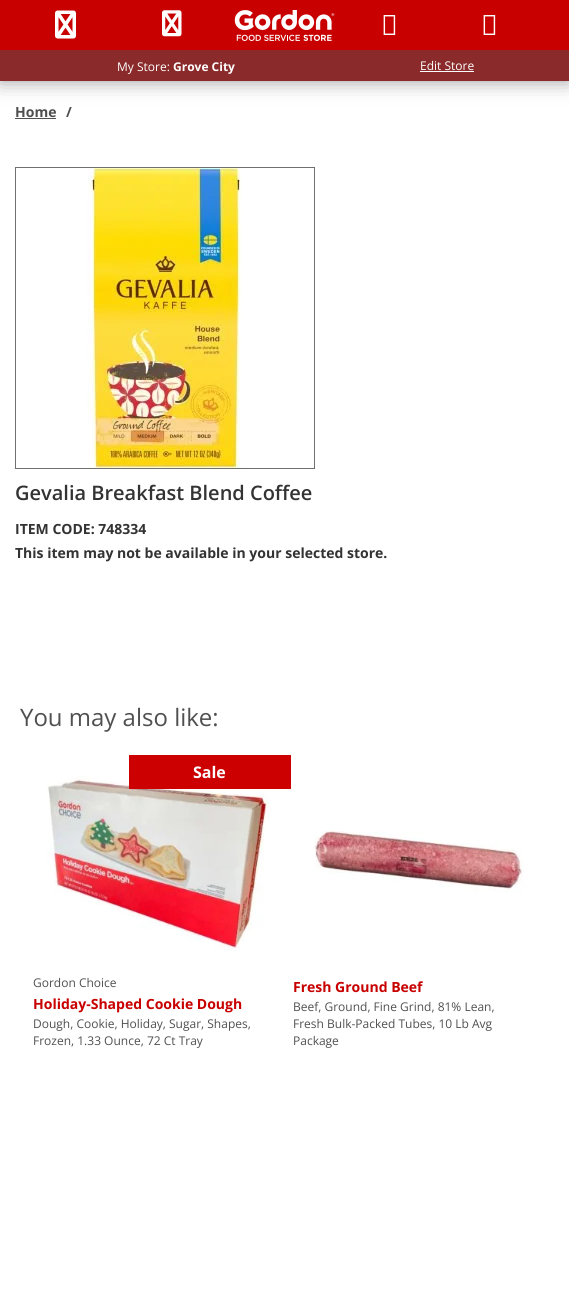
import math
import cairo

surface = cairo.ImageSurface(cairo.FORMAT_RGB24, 569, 1306)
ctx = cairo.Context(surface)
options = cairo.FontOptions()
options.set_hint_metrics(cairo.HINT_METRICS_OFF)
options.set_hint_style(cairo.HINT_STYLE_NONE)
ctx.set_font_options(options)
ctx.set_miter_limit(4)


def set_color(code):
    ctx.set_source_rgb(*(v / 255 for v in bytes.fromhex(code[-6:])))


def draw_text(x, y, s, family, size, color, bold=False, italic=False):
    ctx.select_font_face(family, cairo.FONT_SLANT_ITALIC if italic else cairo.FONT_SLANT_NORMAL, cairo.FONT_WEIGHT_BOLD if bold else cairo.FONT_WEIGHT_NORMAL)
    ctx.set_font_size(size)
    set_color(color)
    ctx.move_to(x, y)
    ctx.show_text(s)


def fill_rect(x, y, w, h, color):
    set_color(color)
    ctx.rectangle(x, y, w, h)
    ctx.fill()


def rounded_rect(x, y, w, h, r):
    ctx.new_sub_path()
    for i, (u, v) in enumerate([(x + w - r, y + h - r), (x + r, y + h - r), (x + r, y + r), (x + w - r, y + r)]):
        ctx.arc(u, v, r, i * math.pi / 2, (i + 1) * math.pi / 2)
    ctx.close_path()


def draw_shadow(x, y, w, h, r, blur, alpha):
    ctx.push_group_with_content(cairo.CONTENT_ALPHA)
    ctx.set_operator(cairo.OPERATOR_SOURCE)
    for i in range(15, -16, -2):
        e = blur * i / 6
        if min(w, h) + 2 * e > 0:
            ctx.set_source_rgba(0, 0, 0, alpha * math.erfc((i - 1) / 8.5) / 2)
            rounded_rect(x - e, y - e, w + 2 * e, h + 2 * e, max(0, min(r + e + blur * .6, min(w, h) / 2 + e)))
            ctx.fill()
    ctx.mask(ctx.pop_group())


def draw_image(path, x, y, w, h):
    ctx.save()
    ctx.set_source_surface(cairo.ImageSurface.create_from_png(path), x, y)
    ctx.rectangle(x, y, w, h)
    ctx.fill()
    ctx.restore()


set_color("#ffffff")
ctx.paint()
set_color("#000000")
draw_shadow(0, 0, 569, 81, 0, 10, 0.4)
fill_rect(0, 0, 569, 50, "#c80000")
draw_image("assets/img1.png", 55, 10, 21, 29)
draw_image("assets/img2.png", 162, 10, 20, 27)
draw_image("assets/img3.png", 234, 10, 101, 31)
draw_image("assets/img4.png", 383, 15, 13, 20)
draw_image("assets/img4.png", 483, 15, 13, 20)
fill_rect(0, 50, 569, 31, "#8a2a2b")
draw_text(117, 71, "My Store:", "Open Sans", 12, "#ffffff")
draw_text(173, 71, "Grove City", "Open Sans", 12, "#ffffff", bold=True)
draw_text(420, 70, "Edit Store", "Open Sans", 12, "#ffffff")
fill_rect(420, 71, 54, 1, "#ffffff")
draw_text(15, 117, "Home", "Open Sans", 14, "#505050", bold=True)
fill_rect(15, 118, 41, 1, "#505050")
draw_text(66, 117, "/", "Open Sans", 14, "#505050", bold=True)
ctx.rectangle(15.5, 167.5, 299, 301)
set_color("#707070")
ctx.set_line_width(1)
ctx.stroke()
draw_image("assets/img5.png", 87, 168, 154, 300)
draw_text(15, 500, "Gevalia Breakfast Blend Coffee", "Open Sans SemiBold", 20, "#333333")
draw_text(15, 534, "ITEM CODE: 748334", "Open Sans", 14, "#333333", bold=True)
draw_text(15, 558, "This item may not be available in your selected store.", "Open Sans", 14, "#333333", bold=True)
draw_text(20, 726, "You may also like:", "Open Sans", 24, "#505050")
draw_image("assets/img6.png", 46, 776, 224, 175)
fill_rect(129, 755, 162, 34, "#cc0000")
draw_text(193, 778, "Sale", "Open Sans", 16, "#ffffff", bold=True)
draw_text(33, 987, "Gordon Choice", "Open Sans", 12, "#505050")
draw_text(33, 1009, "Holiday-Shaped Cookie Dough", "Open Sans", 14, "#c80000", bold=True)
draw_text(33, 1028, "Dough, Cookie, Holiday, Sugar, Shapes,", "Open Sans", 12, "#505050")
draw_text(33, 1045, "Frozen, 1.33 Ounce, 72 Ct Tray", "Open Sans", 12, "#505050")
draw_image("assets/img7.png", 314, 831, 210, 61)
draw_text(293, 992, "Fresh Ground Beef", "Open Sans", 14, "#c80000", bold=True)
draw_text(293, 1011, "Beef, Ground, Fine Grind, 81% Lean,", "Open Sans", 12, "#505050")
draw_text(293, 1028, "Fresh Bulk-Packed Tubes, 10 Lb Avg", "Open Sans", 12, "#505050")
draw_text(293, 1045, "Package", "Open Sans", 12, "#505050")
surface.write_to_png("output.png")
